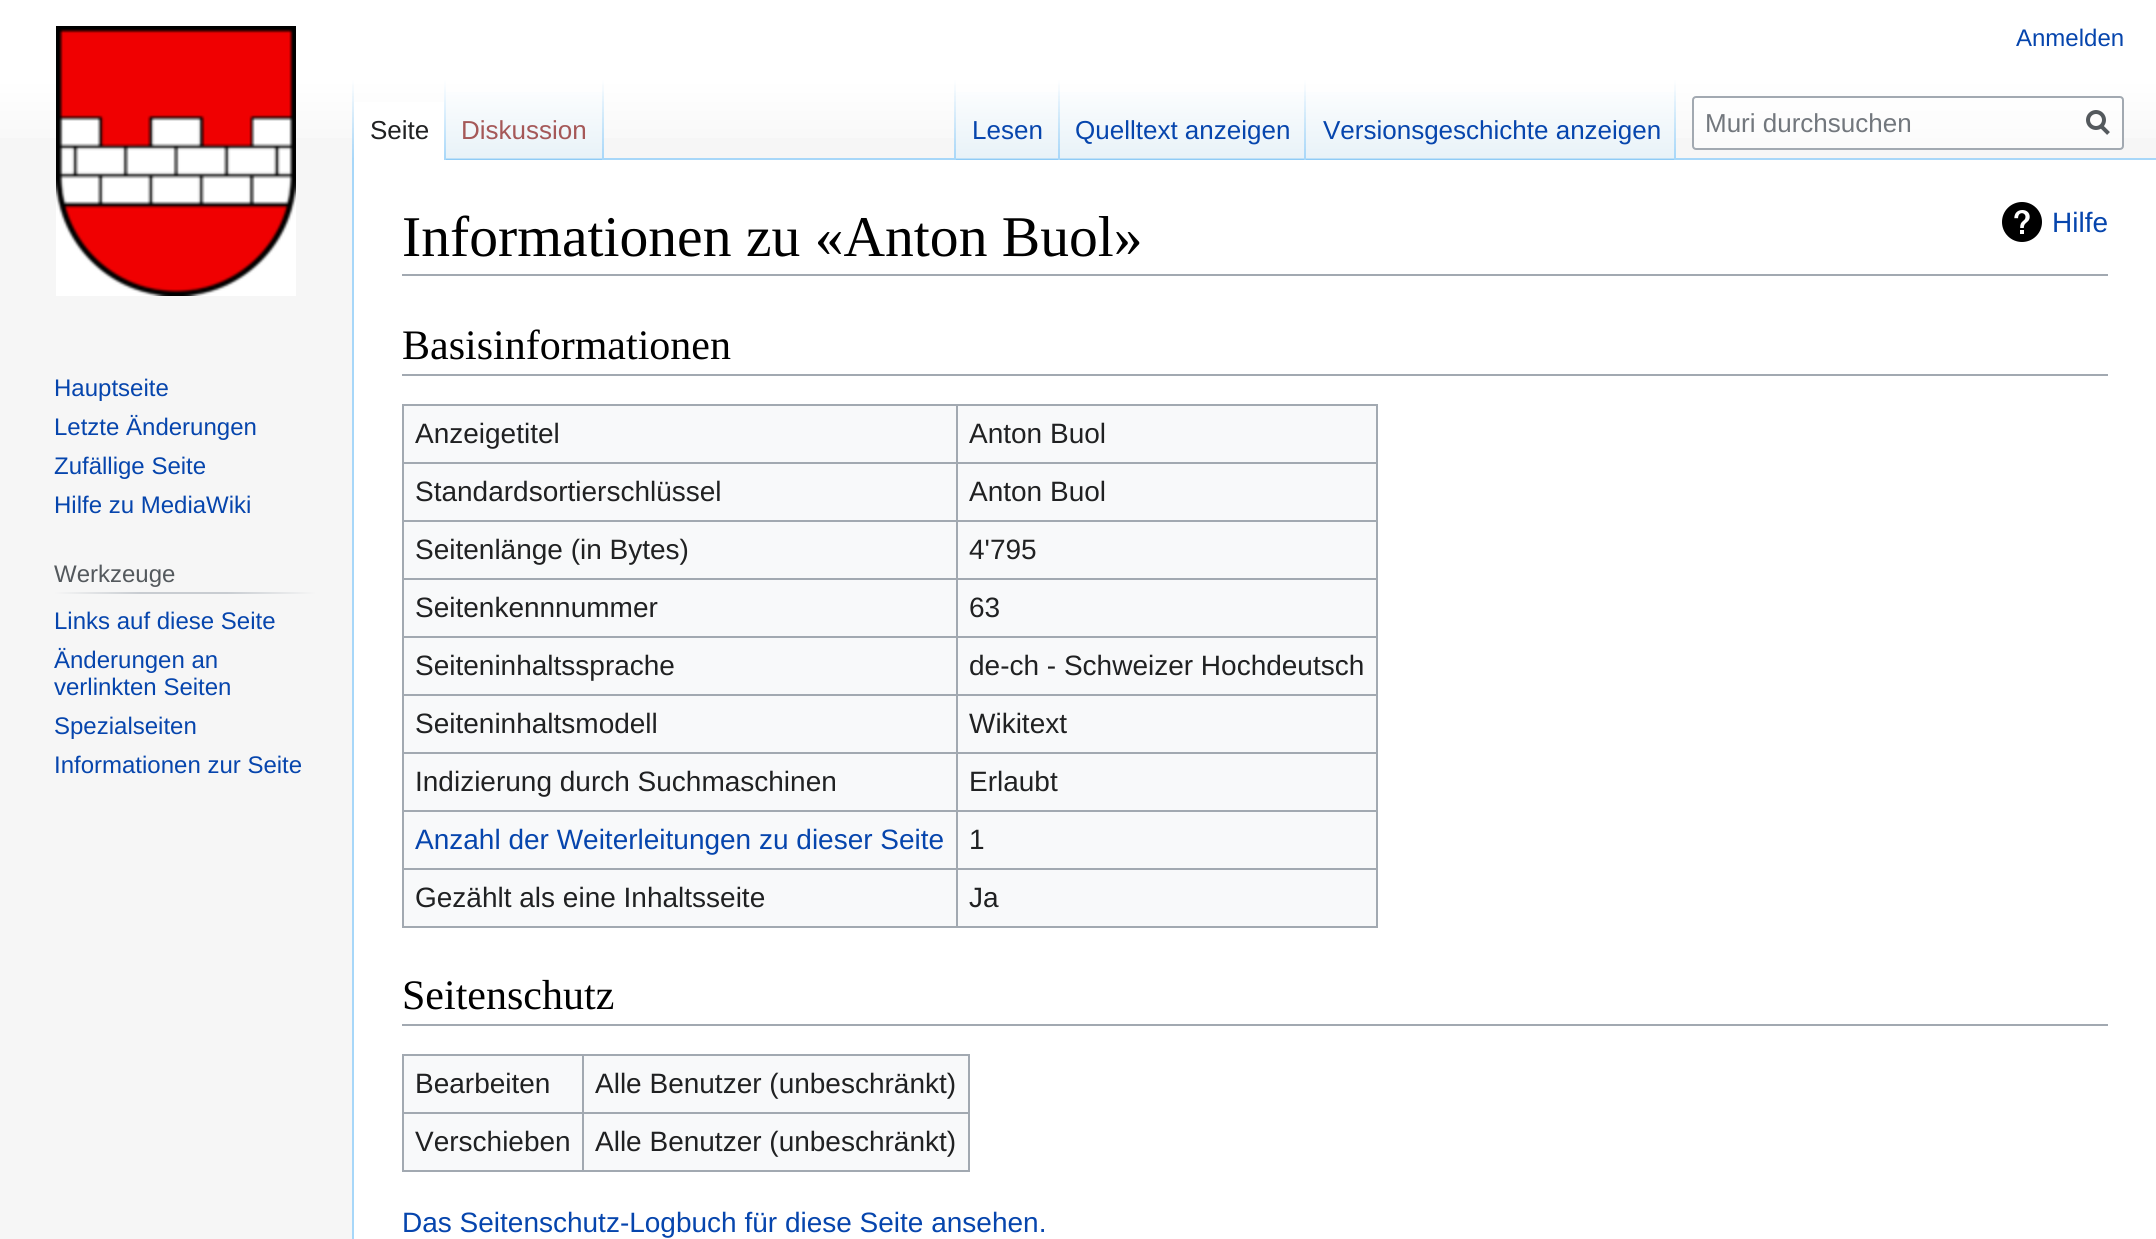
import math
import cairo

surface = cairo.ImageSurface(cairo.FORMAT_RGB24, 2156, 1239)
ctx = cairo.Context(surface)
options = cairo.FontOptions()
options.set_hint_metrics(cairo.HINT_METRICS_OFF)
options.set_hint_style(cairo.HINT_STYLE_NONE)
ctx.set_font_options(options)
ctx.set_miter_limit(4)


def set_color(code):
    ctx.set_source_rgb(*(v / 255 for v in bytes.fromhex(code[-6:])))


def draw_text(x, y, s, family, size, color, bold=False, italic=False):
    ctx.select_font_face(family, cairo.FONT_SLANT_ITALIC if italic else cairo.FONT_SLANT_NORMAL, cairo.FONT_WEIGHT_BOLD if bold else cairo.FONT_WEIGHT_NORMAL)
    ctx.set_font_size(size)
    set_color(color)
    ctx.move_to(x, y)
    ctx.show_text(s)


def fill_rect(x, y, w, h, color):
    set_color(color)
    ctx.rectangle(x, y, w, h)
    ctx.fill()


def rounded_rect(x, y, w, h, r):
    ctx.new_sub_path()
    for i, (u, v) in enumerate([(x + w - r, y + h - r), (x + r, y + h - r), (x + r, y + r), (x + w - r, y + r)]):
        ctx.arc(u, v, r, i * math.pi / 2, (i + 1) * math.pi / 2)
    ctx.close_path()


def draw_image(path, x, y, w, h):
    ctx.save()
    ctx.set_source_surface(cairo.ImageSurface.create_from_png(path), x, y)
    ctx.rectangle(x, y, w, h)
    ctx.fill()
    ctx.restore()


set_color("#f6f6f6")
ctx.paint()
gradient = cairo.LinearGradient(1078, 0, 1078, 160)
gradient.add_color_stop_rgba(0.5, 1, 1, 1, 1)
gradient.add_color_stop_rgba(1, 0.965, 0.965, 0.965, 1)
ctx.set_source(gradient)
ctx.rectangle(0, 0, 2156, 138)
ctx.fill()
draw_text(2016, 46, "Anmelden", "Liberation Sans", 24, "#0645ad")
fill_rect(352, 158, 2, 1081, "#a7d7f9")
gradient = cairo.LinearGradient(353, 80, 353, 160)
gradient.add_color_stop_rgba(0, 0.655, 0.843, 0.976, 0)
gradient.add_color_stop_rgba(1, 0.655, 0.843, 0.976, 1)
ctx.set_source(gradient)
ctx.rectangle(352, 80, 2, 80)
ctx.fill()
fill_rect(354, 102, 90, 58, "#ffffff")
gradient = cairo.LinearGradient(445, 80, 445, 160)
gradient.add_color_stop_rgba(0, 1, 1, 1, 1)
gradient.add_color_stop_rgba(1, 0.655, 0.843, 0.976, 1)
ctx.set_source(gradient)
ctx.rectangle(444, 80, 2, 80)
ctx.fill()
draw_text(370, 139, "Seite", "Liberation Sans", 26, "#202122")
gradient = cairo.LinearGradient(525, 160, 525, 80)
gradient.add_color_stop_rgba(0, 0.467, 0.757, 0.965, 1)
gradient.add_color_stop_rgba(0.03, 0.91, 0.949, 0.973, 1)
gradient.add_color_stop_rgba(1, 1, 1, 1, 1)
ctx.set_source(gradient)
ctx.rectangle(446, 92, 158, 68)
ctx.fill()
gradient = cairo.LinearGradient(603, 80, 603, 160)
gradient.add_color_stop_rgba(0, 0.655, 0.843, 0.976, 0)
gradient.add_color_stop_rgba(1, 0.655, 0.843, 0.976, 1)
ctx.set_source(gradient)
ctx.rectangle(602, 80, 2, 80)
ctx.fill()
draw_text(461, 139, "Diskussion", "Liberation Sans", 26, "#a55858")
fill_rect(604, 158, 1552, 2, "#a7d7f9")
gradient = cairo.LinearGradient(955, 80, 955, 160)
gradient.add_color_stop_rgba(0, 0.655, 0.843, 0.976, 0)
gradient.add_color_stop_rgba(1, 0.655, 0.843, 0.976, 1)
ctx.set_source(gradient)
ctx.rectangle(954, 80, 2, 80)
ctx.fill()
gradient = cairo.LinearGradient(1008, 160, 1008, 80)
gradient.add_color_stop_rgba(0, 0.467, 0.757, 0.965, 1)
gradient.add_color_stop_rgba(0.03, 0.91, 0.949, 0.973, 1)
gradient.add_color_stop_rgba(1, 1, 1, 1, 1)
ctx.set_source(gradient)
ctx.rectangle(956, 92, 104, 68)
ctx.fill()
gradient = cairo.LinearGradient(1059, 80, 1059, 160)
gradient.add_color_stop_rgba(0, 0.655, 0.843, 0.976, 0)
gradient.add_color_stop_rgba(1, 0.655, 0.843, 0.976, 1)
ctx.set_source(gradient)
ctx.rectangle(1058, 80, 2, 80)
ctx.fill()
draw_text(972, 139, "Lesen", "Liberation Sans", 26, "#0645ad")
gradient = cairo.LinearGradient(1183, 160, 1183, 80)
gradient.add_color_stop_rgba(0, 0.467, 0.757, 0.965, 1)
gradient.add_color_stop_rgba(0.03, 0.91, 0.949, 0.973, 1)
gradient.add_color_stop_rgba(1, 1, 1, 1, 1)
ctx.set_source(gradient)
ctx.rectangle(1060, 92, 246, 68)
ctx.fill()
gradient = cairo.LinearGradient(1305, 80, 1305, 160)
gradient.add_color_stop_rgba(0, 0.655, 0.843, 0.976, 0)
gradient.add_color_stop_rgba(1, 0.655, 0.843, 0.976, 1)
ctx.set_source(gradient)
ctx.rectangle(1304, 80, 2, 80)
ctx.fill()
draw_text(1075, 139, "Quelltext anzeigen", "Liberation Sans", 26, "#0645ad")
gradient = cairo.LinearGradient(1491, 160, 1491, 80)
gradient.add_color_stop_rgba(0, 0.467, 0.757, 0.965, 1)
gradient.add_color_stop_rgba(0.03, 0.91, 0.949, 0.973, 1)
gradient.add_color_stop_rgba(1, 1, 1, 1, 1)
ctx.set_source(gradient)
ctx.rectangle(1306, 92, 370, 68)
ctx.fill()
gradient = cairo.LinearGradient(1675, 80, 1675, 160)
gradient.add_color_stop_rgba(0, 0.655, 0.843, 0.976, 0)
gradient.add_color_stop_rgba(1, 0.655, 0.843, 0.976, 1)
ctx.set_source(gradient)
ctx.rectangle(1674, 80, 2, 80)
ctx.fill()
draw_text(1323, 139, "Versionsgeschichte anzeigen", "Liberation Sans", 26, "#0645ad")
ctx.set_source_rgba(1, 1, 1, 0.5)
rounded_rect(1693, 97, 430, 52, 3)
ctx.fill_preserve()
set_color("#a2a9b1")
ctx.stroke()
draw_text(1705, 132, "Muri durchsuchen", "Liberation Sans", 26, "#72777d")
ctx.new_path()
ctx.move_to(2108.5, 133.5)
ctx.line_to(2100.5, 125.5)
set_color("#54595d")
ctx.set_line_width(4)
ctx.stroke()
ctx.arc(2096, 120, 8, 0, 2 * math.pi)
ctx.stroke()
draw_image("assets/img1.png", 56, 26, 240, 270)
draw_text(54, 396, "Hauptseite", "Liberation Sans", 24, "#0645ad")
draw_text(54, 435, "Letzte Änderungen", "Liberation Sans", 24, "#0645ad")
draw_text(54, 474, "Zufällige Seite", "Liberation Sans", 24, "#0645ad")
draw_text(54, 513, "Hilfe zu MediaWiki", "Liberation Sans", 24, "#0645ad")
gradient = cairo.LinearGradient(54, 593, 316, 593)
gradient.add_color_stop_rgba(0, 0.965, 0.965, 0.965, 1)
gradient.add_color_stop_rgba(0.33, 0.784, 0.8, 0.82, 1)
gradient.add_color_stop_rgba(0.66, 0.784, 0.8, 0.82, 1)
gradient.add_color_stop_rgba(1, 0.965, 0.965, 0.965, 1)
ctx.set_source(gradient)
ctx.rectangle(54, 592, 262, 2)
ctx.fill()
draw_text(54, 582, "Werkzeuge", "Liberation Sans", 24, "#54595d")
draw_text(54, 629, "Links auf diese Seite", "Liberation Sans", 24, "#0645ad")
draw_text(54, 668, "Änderungen an", "Liberation Sans", 24, "#0645ad")
draw_text(54, 695, "verlinkten Seiten", "Liberation Sans", 24, "#0645ad")
draw_text(54, 734, "Spezialseiten", "Liberation Sans", 24, "#0645ad")
draw_text(54, 773, "Informationen zur Seite", "Liberation Sans", 24, "#0645ad")
fill_rect(354, 160, 1802, 1079, "#ffffff")
fill_rect(402, 274, 1706, 2, "#a2a9b1")
draw_text(402, 256, "Informationen zu «Anton Buol»", "Liberation Serif", 57.6, "#000000")
draw_image("assets/img2.png", 2002, 202, 40, 40)
draw_text(2052, 232, "Hilfe", "Liberation Sans", 28, "#0645ad")
fill_rect(402, 374, 1706, 2, "#a2a9b1")
draw_text(402, 359, "Basisinformationen", "Liberation Serif", 42, "#000000")
fill_rect(404, 406, 972, 520, "#f8f9fa")
fill_rect(402, 404, 976, 2, "#a2a9b1")
fill_rect(1376, 404, 2, 524, "#a2a9b1")
fill_rect(402, 926, 976, 2, "#a2a9b1")
fill_rect(402, 404, 2, 524, "#a2a9b1")
draw_text(415, 443, "Anzeigetitel", "Liberation Sans", 28, "#202122")
fill_rect(956, 462, 422, 2, "#a2a9b1")
fill_rect(956, 520, 422, 2, "#a2a9b1")
fill_rect(956, 578, 422, 2, "#a2a9b1")
fill_rect(956, 636, 422, 2, "#a2a9b1")
fill_rect(956, 694, 422, 2, "#a2a9b1")
fill_rect(956, 752, 422, 2, "#a2a9b1")
fill_rect(956, 810, 422, 2, "#a2a9b1")
fill_rect(956, 868, 422, 2, "#a2a9b1")
fill_rect(956, 868, 2, 60, "#a2a9b1")
fill_rect(402, 868, 556, 2, "#a2a9b1")
fill_rect(956, 810, 2, 60, "#a2a9b1")
fill_rect(402, 810, 556, 2, "#a2a9b1")
fill_rect(956, 752, 2, 60, "#a2a9b1")
fill_rect(402, 752, 556, 2, "#a2a9b1")
fill_rect(956, 694, 2, 60, "#a2a9b1")
fill_rect(402, 694, 556, 2, "#a2a9b1")
fill_rect(956, 636, 2, 60, "#a2a9b1")
fill_rect(402, 636, 556, 2, "#a2a9b1")
fill_rect(956, 578, 2, 60, "#a2a9b1")
fill_rect(402, 578, 556, 2, "#a2a9b1")
fill_rect(956, 520, 2, 60, "#a2a9b1")
fill_rect(402, 520, 556, 2, "#a2a9b1")
fill_rect(956, 462, 2, 60, "#a2a9b1")
fill_rect(402, 462, 556, 2, "#a2a9b1")
fill_rect(956, 404, 2, 60, "#a2a9b1")
draw_text(969, 443, "Anton Buol", "Liberation Sans", 28, "#202122")
draw_text(415, 501, "Standardsortierschlüssel", "Liberation Sans", 28, "#202122")
draw_text(969, 501, "Anton Buol", "Liberation Sans", 28, "#202122")
draw_text(415, 559, "Seitenlänge (in Bytes)", "Liberation Sans", 28, "#202122")
draw_text(969, 559, "4'795", "Liberation Sans", 28, "#202122")
draw_text(415, 617, "Seitenkennnummer", "Liberation Sans", 28, "#202122")
draw_text(969, 617, "63", "Liberation Sans", 28, "#202122")
draw_text(415, 675, "Seiteninhaltssprache", "Liberation Sans", 28, "#202122")
draw_text(969, 675, "de-ch - Schweizer Hochdeutsch", "Liberation Sans", 28, "#202122")
draw_text(415, 733, "Seiteninhaltsmodell", "Liberation Sans", 28, "#202122")
draw_text(969, 733, "Wikitext", "Liberation Sans", 28, "#202122")
draw_text(415, 791, "Indizierung durch Suchmaschinen", "Liberation Sans", 28, "#202122")
draw_text(969, 791, "Erlaubt", "Liberation Sans", 28, "#202122")
draw_text(415, 849, "Anzahl der Weiterleitungen zu dieser Seite", "Liberation Sans", 28, "#0645ad")
draw_text(969, 849, "1", "Liberation Sans", 28, "#202122")
draw_text(415, 907, "Gezählt als eine Inhaltsseite", "Liberation Sans", 28, "#202122")
draw_text(969, 907, "Ja", "Liberation Sans", 28, "#202122")
fill_rect(402, 1024, 1706, 2, "#a2a9b1")
draw_text(402, 1009, "Seitenschutz", "Liberation Serif", 42, "#000000")
fill_rect(404, 1056, 564, 114, "#f8f9fa")
fill_rect(402, 1054, 568, 2, "#a2a9b1")
fill_rect(968, 1054, 2, 118, "#a2a9b1")
fill_rect(402, 1170, 568, 2, "#a2a9b1")
fill_rect(402, 1054, 2, 118, "#a2a9b1")
draw_text(415, 1093, "Bearbeiten", "Liberation Sans", 28, "#202122")
fill_rect(582, 1112, 388, 2, "#a2a9b1")
fill_rect(582, 1112, 2, 60, "#a2a9b1")
fill_rect(402, 1112, 182, 2, "#a2a9b1")
fill_rect(582, 1054, 2, 60, "#a2a9b1")
draw_text(595, 1093, "Alle Benutzer (unbeschränkt)", "Liberation Sans", 28, "#202122")
draw_text(415, 1151, "Verschieben", "Liberation Sans", 28, "#202122")
draw_text(595, 1151, "Alle Benutzer (unbeschränkt)", "Liberation Sans", 28, "#202122")
draw_text(402, 1232, "Das Seitenschutz-Logbuch für diese Seite ansehen.", "Liberation Sans", 28, "#0645ad")
surface.write_to_png("output.png")
